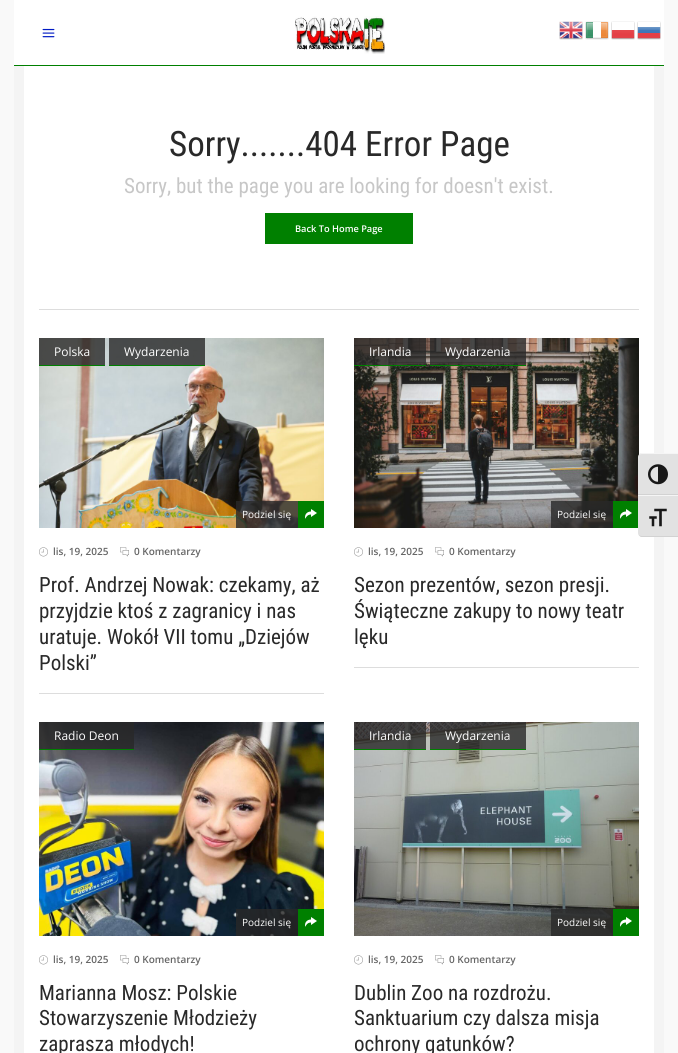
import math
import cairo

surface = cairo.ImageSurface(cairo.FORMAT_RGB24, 678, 1053)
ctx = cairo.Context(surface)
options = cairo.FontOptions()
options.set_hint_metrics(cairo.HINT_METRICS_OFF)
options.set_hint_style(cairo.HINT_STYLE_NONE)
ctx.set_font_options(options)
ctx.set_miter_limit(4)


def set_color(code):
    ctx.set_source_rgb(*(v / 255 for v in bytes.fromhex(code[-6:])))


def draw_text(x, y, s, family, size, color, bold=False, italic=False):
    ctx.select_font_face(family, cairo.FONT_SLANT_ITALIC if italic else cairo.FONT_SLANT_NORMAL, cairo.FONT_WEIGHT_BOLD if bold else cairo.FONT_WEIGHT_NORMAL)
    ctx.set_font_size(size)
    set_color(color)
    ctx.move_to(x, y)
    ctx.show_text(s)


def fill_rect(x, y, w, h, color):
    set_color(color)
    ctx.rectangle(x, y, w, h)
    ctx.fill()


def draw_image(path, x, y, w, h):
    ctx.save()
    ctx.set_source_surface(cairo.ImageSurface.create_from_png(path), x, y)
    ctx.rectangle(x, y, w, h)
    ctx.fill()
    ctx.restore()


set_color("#f9f9f9")
ctx.paint()
fill_rect(14, 0, 650, 65, "#ffffff")
draw_image("assets/img1.png", 559, 21, 24, 19)
draw_image("assets/img2.png", 585, 21, 24, 19)
draw_image("assets/img3.png", 611, 21, 24, 19)
draw_image("assets/img4.png", 637, 21, 24, 19)
fill_rect(14, 66, 650, 987, "#f4f4f4")
fill_rect(14, 65, 650, 1, "#008000")
draw_image("assets/img5.png", 42, 28, 13, 10)
draw_image("assets/img6.png", 295, 16, 90, 38)
fill_rect(24, 66, 630, 987, "#ffffff")
draw_text(169, 156, "Sorry.......404 Error Page", "Roboto Condensed", 35, "#292929")
draw_text(124, 193, "Sorry, but the page you are looking for doesn't exist.", "Roboto Condensed", 21, "#c7c7c7")
fill_rect(265, 213, 148, 31, "#008000")
draw_text(295, 232, "Back To Home Page", "Open Sans SemiBold", 9.25, "#ffffff")
fill_rect(39, 309, 600, 1, "#dddddd")
draw_image("assets/img7.png", 39, 338, 285, 190)
ctx.set_source_rgba(0.161, 0.161, 0.161, 0.8)
ctx.rectangle(39, 338, 66, 27)
ctx.fill()
fill_rect(39, 365, 66, 1, "#008000")
draw_text(54, 356, "Polska", "Open Sans", 12, "#ffffff")
ctx.set_source_rgba(0.161, 0.161, 0.161, 0.8)
ctx.rectangle(109, 338, 96, 27)
ctx.fill()
fill_rect(109, 365, 96, 1, "#008000")
draw_text(124, 356, "Wydarzenia", "Open Sans", 12, "#ffffff")
ctx.set_source_rgba(0.161, 0.161, 0.161, 0.8)
ctx.rectangle(236, 501, 62, 27)
ctx.fill()
draw_text(242, 518, "Podziel się", "Open Sans", 10, "#ffffff")
fill_rect(298, 501, 26, 27, "#008000")
draw_image("assets/img8.png", 305, 509, 12, 10)
draw_image("assets/img9.png", 39, 547, 9, 10)
draw_text(53, 555, "lis, 19, 2025", "Open Sans SemiBold", 10, "#666666")
draw_image("assets/img10.png", 120, 547, 9, 10)
draw_text(134, 555, "0 Komentarzy", "Open Sans SemiBold", 10, "#666666")
fill_rect(39, 693, 285, 1, "#dddddd")
draw_text(39, 592, "Prof. Andrzej Nowak: czekamy, aż", "Roboto Condensed", 21, "#292929")
draw_text(39, 618, "przyjdzie ktoś z zagranicy i nas", "Roboto Condensed", 21, "#292929")
draw_text(39, 644, "uratuje. Wokół VII tomu „Dziejów", "Roboto Condensed", 21, "#292929")
draw_text(39, 670, "Polski”", "Roboto Condensed", 21, "#292929")
draw_image("assets/img11.png", 354, 338, 285, 190)
ctx.set_source_rgba(0.161, 0.161, 0.161, 0.8)
ctx.rectangle(354, 338, 72, 27)
ctx.fill()
fill_rect(354, 365, 72, 1, "#008000")
draw_text(369, 356, "Irlandia", "Open Sans", 12, "#ffffff")
ctx.set_source_rgba(0.161, 0.161, 0.161, 0.8)
ctx.rectangle(430, 338, 96, 27)
ctx.fill()
fill_rect(430, 365, 96, 1, "#008000")
draw_text(445, 356, "Wydarzenia", "Open Sans", 12, "#ffffff")
ctx.set_source_rgba(0.161, 0.161, 0.161, 0.8)
ctx.rectangle(551, 501, 62, 27)
ctx.fill()
draw_text(557, 518, "Podziel się", "Open Sans", 10, "#ffffff")
fill_rect(613, 501, 25, 27, "#008000")
draw_image("assets/img8.png", 620, 509, 12, 10)
draw_image("assets/img9.png", 354, 547, 9, 10)
draw_text(368, 555, "lis, 19, 2025", "Open Sans SemiBold", 10, "#666666")
draw_image("assets/img10.png", 435, 547, 9, 10)
draw_text(449, 555, "0 Komentarzy", "Open Sans SemiBold", 10, "#666666")
fill_rect(354, 667, 285, 1, "#dddddd")
draw_text(354, 592, "Sezon prezentów, sezon presji.", "Roboto Condensed", 21, "#292929")
draw_text(354, 618, "Świąteczne zakupy to nowy teatr", "Roboto Condensed", 21, "#292929")
draw_text(354, 644, "lęku", "Roboto Condensed", 21, "#292929")
draw_image("assets/img12.png", 39, 722, 285, 214)
ctx.set_source_rgba(0.161, 0.161, 0.161, 0.8)
ctx.rectangle(39, 722, 95, 27)
ctx.fill()
fill_rect(39, 749, 95, 1, "#008000")
draw_text(54, 740, "Radio Deon", "Open Sans", 12, "#ffffff")
ctx.set_source_rgba(0.161, 0.161, 0.161, 0.8)
ctx.rectangle(236, 909, 62, 27)
ctx.fill()
draw_text(242, 926, "Podziel się", "Open Sans", 10, "#ffffff")
fill_rect(298, 909, 26, 27, "#008000")
draw_image("assets/img8.png", 305, 917, 12, 10)
draw_image("assets/img9.png", 39, 955, 9, 10)
draw_text(53, 963, "lis, 19, 2025", "Open Sans SemiBold", 10, "#666666")
draw_image("assets/img10.png", 120, 955, 9, 10)
draw_text(134, 963, "0 Komentarzy", "Open Sans SemiBold", 10, "#666666")
draw_text(39, 1000, "Marianna Mosz: Polskie", "Roboto Condensed", 21, "#292929")
draw_text(39, 1025, "Stowarzyszenie Młodzieży", "Roboto Condensed", 21, "#292929")
draw_text(39, 1051, "zaprasza młodych!", "Roboto Condensed", 21, "#292929")
draw_image("assets/img13.png", 354, 722, 285, 214)
ctx.set_source_rgba(0.161, 0.161, 0.161, 0.8)
ctx.rectangle(354, 722, 72, 27)
ctx.fill()
fill_rect(354, 749, 72, 1, "#008000")
draw_text(369, 740, "Irlandia", "Open Sans", 12, "#ffffff")
ctx.set_source_rgba(0.161, 0.161, 0.161, 0.8)
ctx.rectangle(430, 722, 96, 27)
ctx.fill()
fill_rect(430, 749, 96, 1, "#008000")
draw_text(445, 740, "Wydarzenia", "Open Sans", 12, "#ffffff")
ctx.set_source_rgba(0.161, 0.161, 0.161, 0.8)
ctx.rectangle(551, 909, 62, 27)
ctx.fill()
draw_text(557, 926, "Podziel się", "Open Sans", 10, "#ffffff")
fill_rect(613, 909, 26, 27, "#008000")
draw_image("assets/img8.png", 620, 917, 12, 10)
draw_image("assets/img9.png", 354, 955, 9, 10)
draw_text(368, 963, "lis, 19, 2025", "Open Sans SemiBold", 10, "#666666")
draw_image("assets/img10.png", 435, 955, 9, 10)
draw_text(449, 963, "0 Komentarzy", "Open Sans SemiBold", 10, "#666666")
draw_text(354, 1000, "Dublin Zoo na rozdrożu.", "Roboto Condensed", 21, "#292929")
draw_text(354, 1025, "Sanktuarium czy dalsza misja", "Roboto Condensed", 21, "#292929")
draw_text(354, 1051, "ochrony gatunków?", "Roboto Condensed", 21, "#292929")
set_color("#e2e2e2")
ctx.new_path()
ctx.move_to(642, 453)
ctx.line_to(678, 453)
ctx.line_to(678, 495)
ctx.line_to(638, 495)
ctx.line_to(638, 457)
ctx.curve_to(638, 455, 640, 453, 642, 453)
ctx.close_path()
ctx.fill()
set_color("#f5f5f5")
ctx.new_path()
ctx.move_to(642, 454)
ctx.line_to(678, 454)
ctx.line_to(678, 453)
ctx.line_to(642, 453)
ctx.curve_to(640, 453, 638, 455, 638, 457)
ctx.curve_to(638, 455, 640, 454, 642, 454)
ctx.close_path()
ctx.fill()
fill_rect(638, 494, 40, 1, "#d2d2d2")
draw_image("assets/img14.png", 648, 464, 20, 21)
set_color("#e2e2e2")
ctx.new_path()
ctx.move_to(638, 495)
ctx.line_to(678, 495)
ctx.line_to(678, 537)
ctx.line_to(642, 537)
ctx.curve_to(640, 537, 638, 535, 638, 533)
ctx.close_path()
ctx.fill()
fill_rect(638, 495, 40, 1, "#f5f5f5")
set_color("#d2d2d2")
ctx.new_path()
ctx.move_to(678, 537)
ctx.line_to(678, 536)
ctx.line_to(642, 536)
ctx.curve_to(640, 536, 638, 535, 638, 533)
ctx.curve_to(638, 535, 640, 537, 642, 537)
ctx.close_path()
ctx.fill()
draw_image("assets/img15.png", 649, 508, 18, 19)
surface.write_to_png("output.png")
